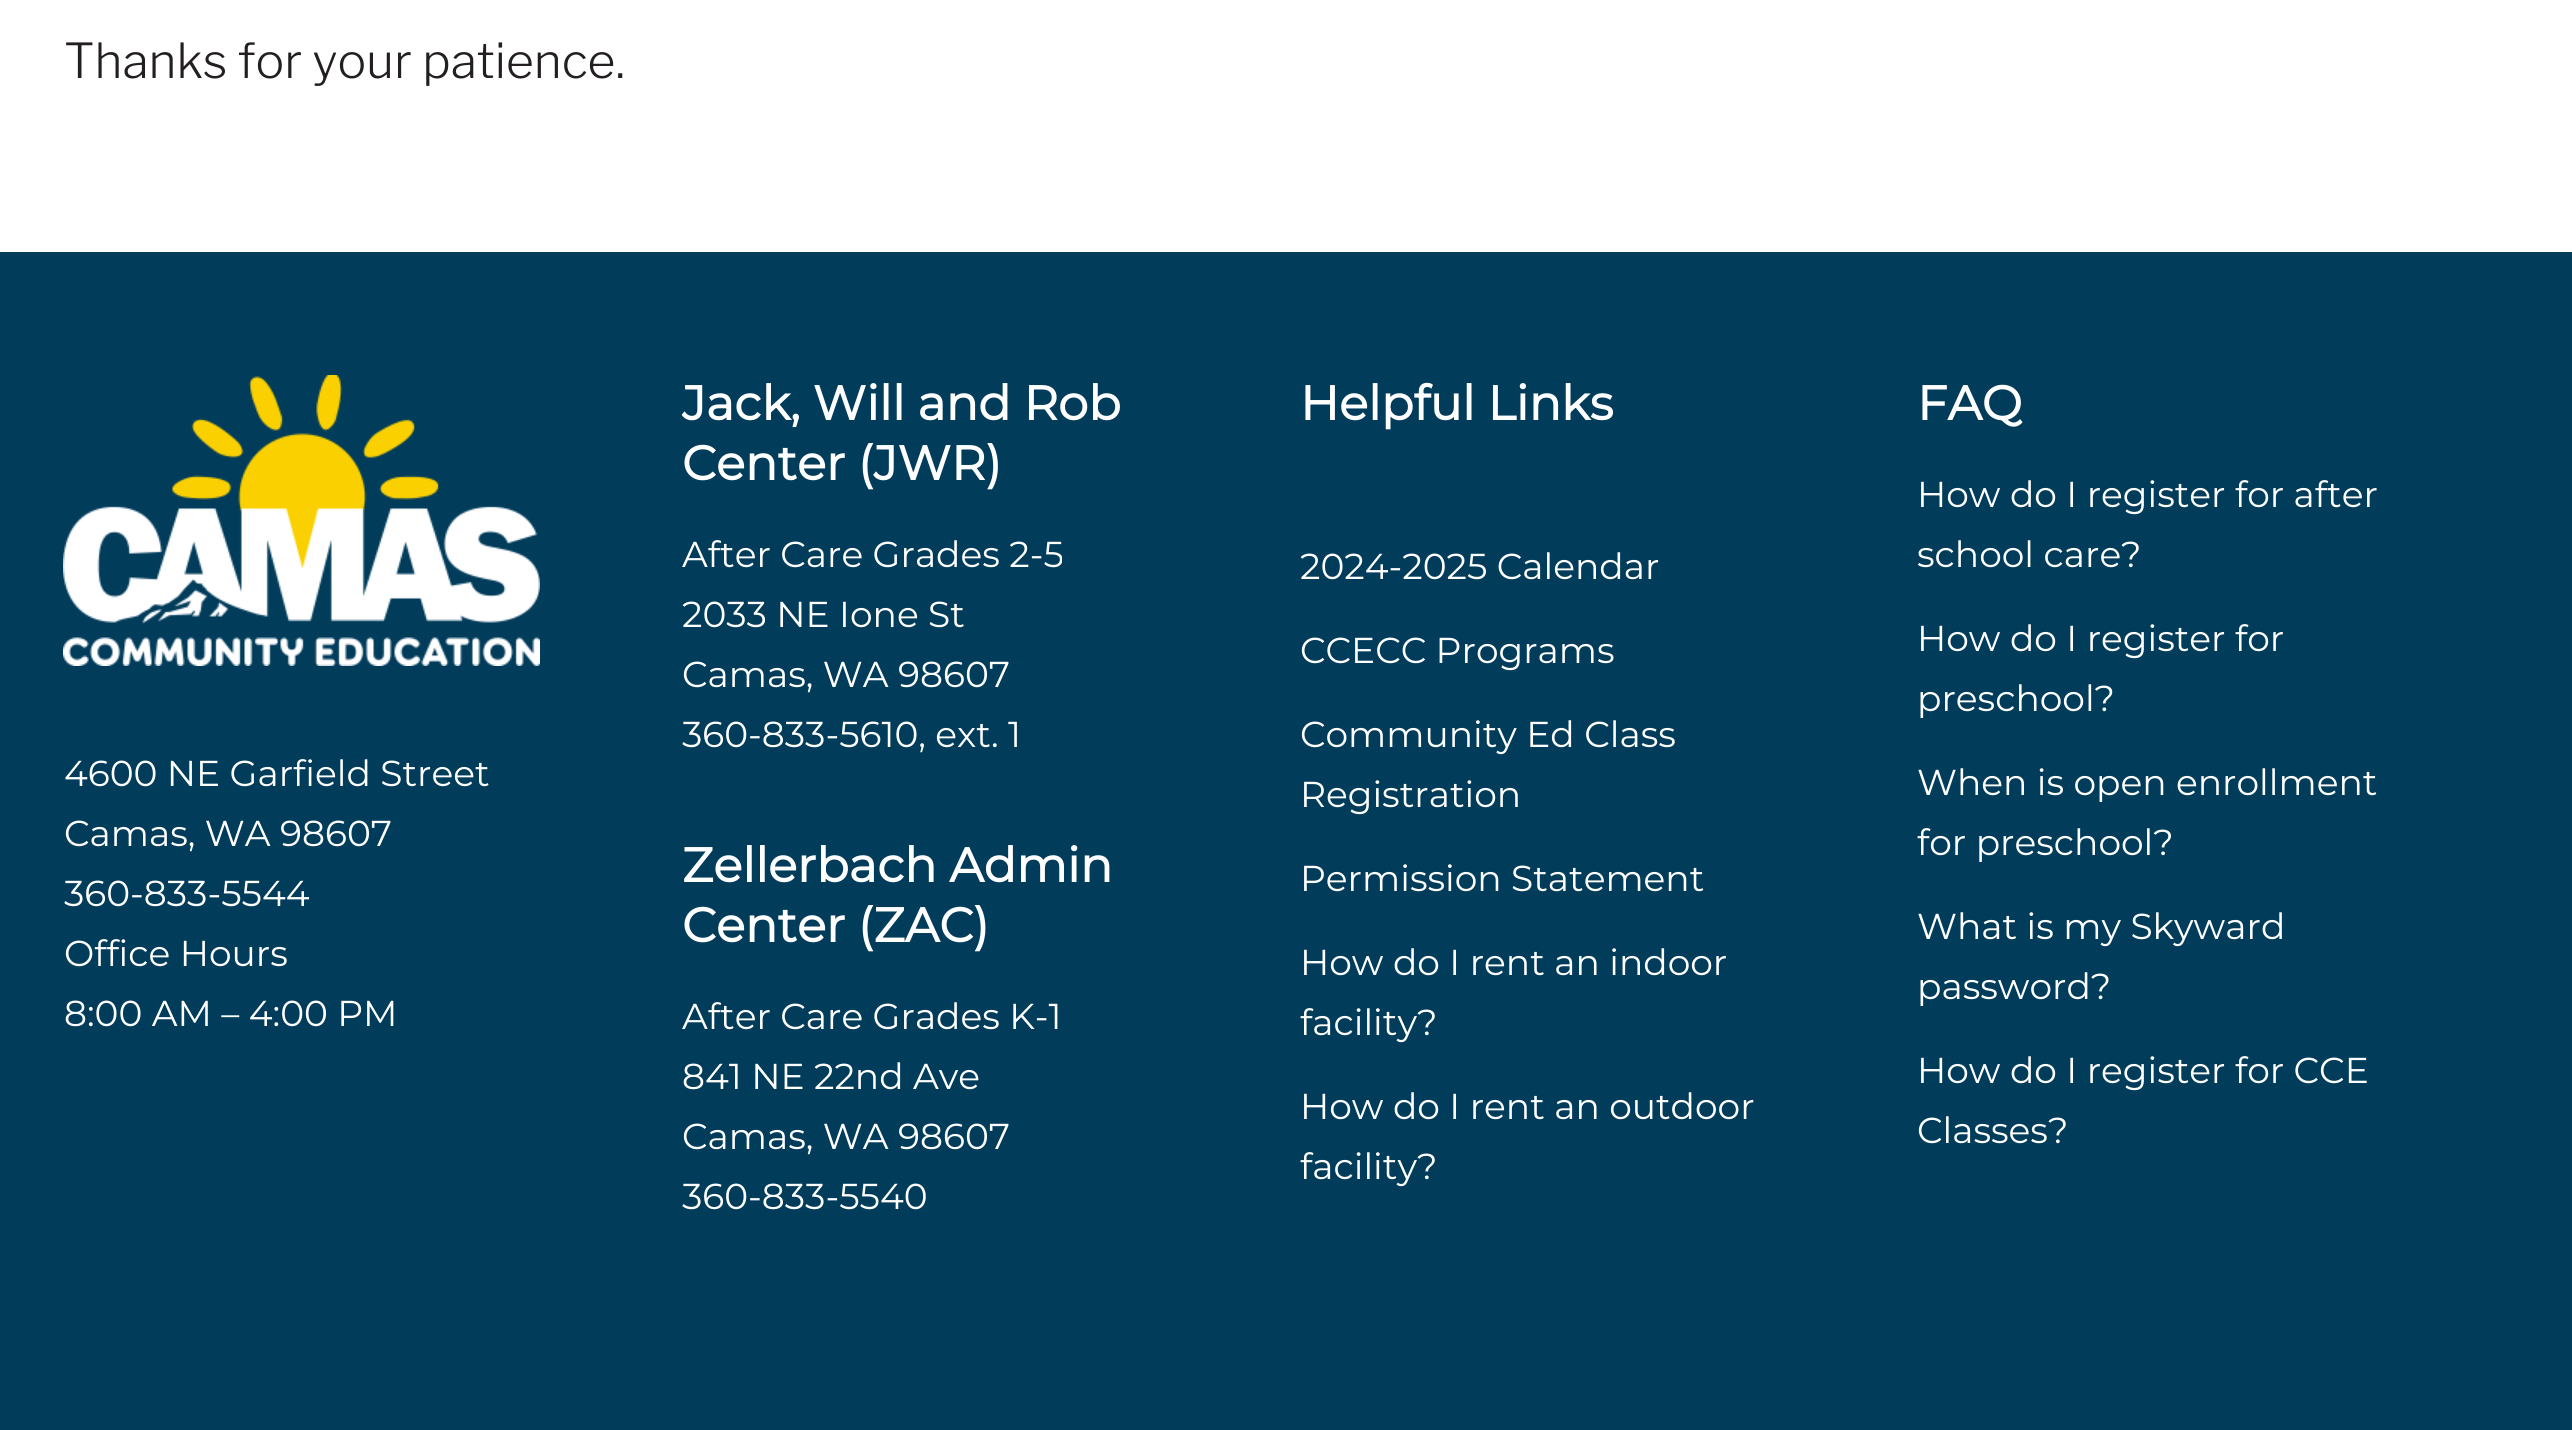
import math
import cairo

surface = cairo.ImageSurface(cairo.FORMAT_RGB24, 2572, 1430)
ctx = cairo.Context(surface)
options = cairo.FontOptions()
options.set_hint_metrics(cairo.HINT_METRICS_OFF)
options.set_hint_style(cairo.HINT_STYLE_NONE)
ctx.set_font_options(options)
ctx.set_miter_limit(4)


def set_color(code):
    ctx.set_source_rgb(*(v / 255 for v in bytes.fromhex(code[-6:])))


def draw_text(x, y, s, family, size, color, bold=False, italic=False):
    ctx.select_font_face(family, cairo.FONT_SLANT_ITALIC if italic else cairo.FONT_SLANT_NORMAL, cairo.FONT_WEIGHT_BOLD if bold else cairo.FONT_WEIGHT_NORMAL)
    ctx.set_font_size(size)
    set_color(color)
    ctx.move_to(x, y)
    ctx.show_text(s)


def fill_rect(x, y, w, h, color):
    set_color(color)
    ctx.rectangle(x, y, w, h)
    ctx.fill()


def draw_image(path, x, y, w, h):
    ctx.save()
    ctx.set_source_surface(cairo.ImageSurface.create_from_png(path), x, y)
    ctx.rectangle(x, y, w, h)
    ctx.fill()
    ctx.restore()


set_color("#013c5b")
ctx.paint()
fill_rect(0, 0, 2572, 252, "#ffffff")
draw_text(64, 78, "Thanks for your patience.", "Libre Franklin Light", 48, "#231f20")
draw_image("assets/img1.png", 63, 375, 477, 291)
draw_text(64, 786, "4600 NE Garfield Street", "Montserrat Thin", 36, "#ffffff")
draw_text(64, 846, "Camas, WA 98607", "Montserrat Thin", 36, "#ffffff")
draw_text(64, 906, "360-833-5544", "Montserrat Thin", 36, "#ffffff")
draw_text(64, 966, "Office Hours", "Montserrat Thin", 36, "#ffffff")
draw_text(64, 1026, "8:00 AM – 4:00 PM", "Montserrat Thin", 36, "#ffffff")
draw_text(682, 420, "Jack, Will and Rob", "Montserrat", 48, "#ffffff", bold=True)
draw_text(682, 480, "Center (JWR)", "Montserrat", 48, "#ffffff", bold=True)
draw_text(682, 567, "After Care Grades 2-5", "Montserrat Thin", 36, "#ffffff")
draw_text(682, 627, "2033 NE Ione St", "Montserrat Thin", 36, "#ffffff")
draw_text(682, 687, "Camas, WA 98607", "Montserrat Thin", 36, "#ffffff")
draw_text(682, 747, "360-833-5610, ext. 1", "Montserrat Thin", 36, "#ffffff")
draw_text(682, 882, "Zellerbach Admin", "Montserrat", 48, "#ffffff", bold=True)
draw_text(682, 942, "Center (ZAC)", "Montserrat", 48, "#ffffff", bold=True)
draw_text(682, 1029, "After Care Grades K-1", "Montserrat Thin", 36, "#ffffff")
draw_text(682, 1089, "841 NE 22nd Ave", "Montserrat Thin", 36, "#ffffff")
draw_text(682, 1149, "Camas, WA 98607", "Montserrat Thin", 36, "#ffffff")
draw_text(682, 1209, "360-833-5540", "Montserrat Thin", 36, "#ffffff")
draw_text(1300, 420, "Helpful Links", "Montserrat", 48, "#ffffff", bold=True)
draw_text(1300, 579, "2024-2025 Calendar", "Montserrat Thin", 36, "#ffffff")
draw_text(1300, 663, "CCECC Programs", "Montserrat Thin", 36, "#ffffff")
draw_text(1300, 747, "Community Ed Class", "Montserrat Thin", 36, "#ffffff")
draw_text(1300, 807, "Registration", "Montserrat Thin", 36, "#ffffff")
draw_text(1300, 891, "Permission Statement", "Montserrat Thin", 36, "#ffffff")
draw_text(1300, 975, "How do I rent an indoor", "Montserrat Thin", 36, "#ffffff")
draw_text(1300, 1035, "facility?", "Montserrat Thin", 36, "#ffffff")
draw_text(1300, 1119, "How do I rent an outdoor", "Montserrat Thin", 36, "#ffffff")
draw_text(1300, 1179, "facility?", "Montserrat Thin", 36, "#ffffff")
draw_text(1917, 420, "FAQ", "Montserrat", 48, "#ffffff", bold=True)
draw_text(1917, 507, "How do I register for after", "Montserrat Thin", 36, "#ffffff")
draw_text(1917, 567, "school care?", "Montserrat Thin", 36, "#ffffff")
draw_text(1917, 651, "How do I register for", "Montserrat Thin", 36, "#ffffff")
draw_text(1917, 711, "preschool?", "Montserrat Thin", 36, "#ffffff")
draw_text(1917, 795, "When is open enrollment", "Montserrat Thin", 36, "#ffffff")
draw_text(1917, 855, "for preschool?", "Montserrat Thin", 36, "#ffffff")
draw_text(1917, 939, "What is my Skyward", "Montserrat Thin", 36, "#ffffff")
draw_text(1917, 999, "password?", "Montserrat Thin", 36, "#ffffff")
draw_text(1917, 1083, "How do I register for CCE", "Montserrat Thin", 36, "#ffffff")
draw_text(1917, 1143, "Classes?", "Montserrat Thin", 36, "#ffffff")
surface.write_to_png("output.png")
